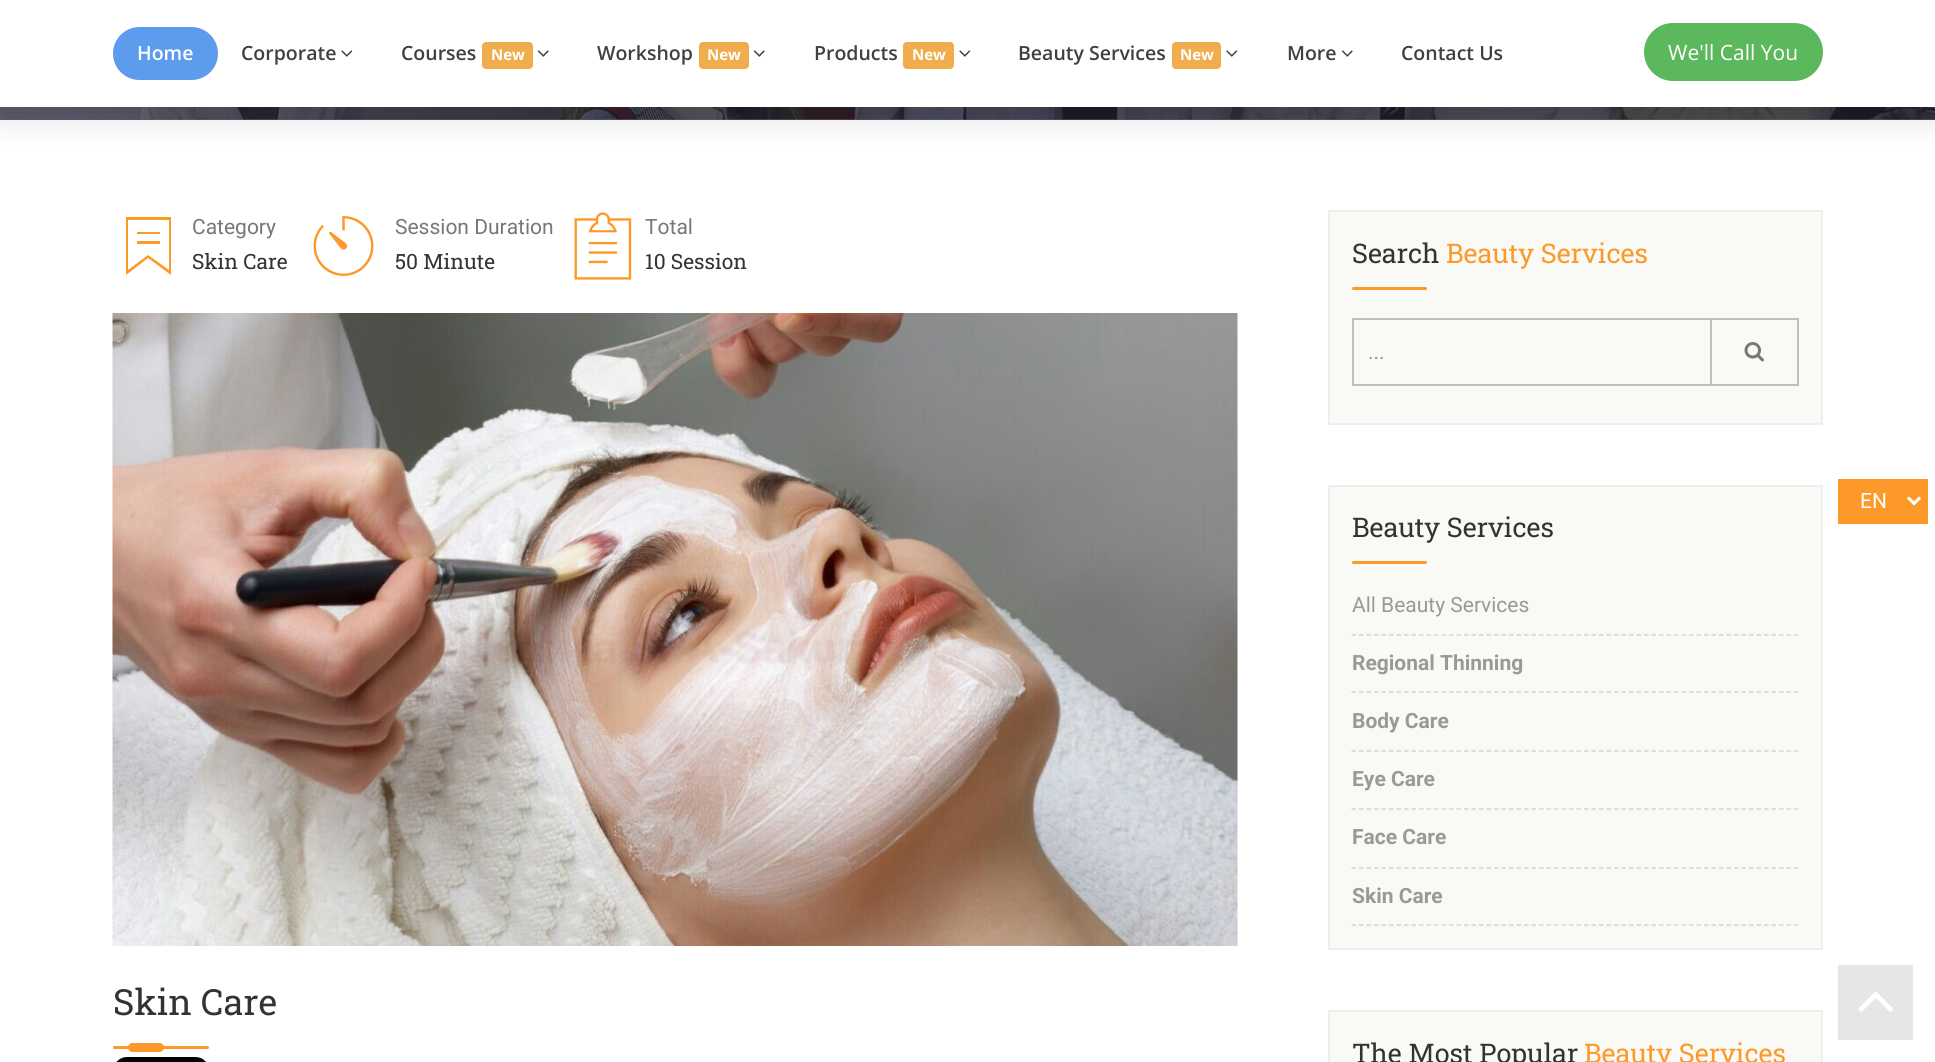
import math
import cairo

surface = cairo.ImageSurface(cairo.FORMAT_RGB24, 1935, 1062)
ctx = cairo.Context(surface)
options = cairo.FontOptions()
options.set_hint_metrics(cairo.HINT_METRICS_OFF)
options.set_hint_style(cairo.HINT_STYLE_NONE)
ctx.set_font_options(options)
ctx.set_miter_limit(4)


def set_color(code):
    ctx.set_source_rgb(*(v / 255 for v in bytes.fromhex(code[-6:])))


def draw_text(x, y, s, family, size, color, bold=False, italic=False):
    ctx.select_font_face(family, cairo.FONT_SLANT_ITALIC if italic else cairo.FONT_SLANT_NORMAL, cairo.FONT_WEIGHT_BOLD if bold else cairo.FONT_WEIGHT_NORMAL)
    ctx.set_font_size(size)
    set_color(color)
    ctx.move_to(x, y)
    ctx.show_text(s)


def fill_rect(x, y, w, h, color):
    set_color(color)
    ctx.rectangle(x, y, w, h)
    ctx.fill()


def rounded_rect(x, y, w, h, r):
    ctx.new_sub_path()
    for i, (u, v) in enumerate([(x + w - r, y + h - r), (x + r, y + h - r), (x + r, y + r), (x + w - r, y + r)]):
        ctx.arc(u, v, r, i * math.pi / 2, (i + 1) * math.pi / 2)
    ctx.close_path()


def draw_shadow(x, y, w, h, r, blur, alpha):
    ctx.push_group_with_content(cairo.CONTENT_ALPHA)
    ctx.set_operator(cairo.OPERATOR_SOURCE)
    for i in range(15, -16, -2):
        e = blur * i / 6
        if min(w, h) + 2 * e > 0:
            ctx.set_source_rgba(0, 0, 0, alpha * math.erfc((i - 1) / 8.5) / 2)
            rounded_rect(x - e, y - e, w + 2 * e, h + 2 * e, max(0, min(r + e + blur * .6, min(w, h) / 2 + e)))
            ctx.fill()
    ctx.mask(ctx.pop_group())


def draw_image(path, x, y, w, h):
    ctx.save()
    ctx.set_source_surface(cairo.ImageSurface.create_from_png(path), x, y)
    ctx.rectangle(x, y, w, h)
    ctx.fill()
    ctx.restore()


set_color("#ffffff")
ctx.paint()
fill_rect(0, 119, 1935, 1, "#64656f")
draw_image("assets/img3.png", 0, 107, 1935, 13)
set_color("#000000")
draw_shadow(0, 15, 1935, 107, 0, 15, 0.1)
fill_rect(0, 0, 1935, 107, "#ffffff")
set_color("#5d9cec")
rounded_rect(113, 27, 105, 53, 26.5)
ctx.fill()
draw_text(137, 60, "Home", "Open Sans SemiBold", 19.5, "#ffffff")
draw_text(241, 60, "Corporate", "Open Sans SemiBold", 19.5, "#404040")
draw_image("assets/img1.png", 341, 50, 12, 7)
draw_text(401, 60, "Courses", "Open Sans SemiBold", 19.5, "#404040")
set_color("#f0ad4e")
rounded_rect(482, 42, 51, 27, 4)
ctx.fill()
draw_text(491, 60, "New", "Open Sans", 15, "#ffffff", bold=True)
draw_image("assets/img2.png", 537, 50, 12, 7)
draw_text(597, 60, "Workshop", "Open Sans SemiBold", 19.5, "#404040")
set_color("#f0ad4e")
rounded_rect(699, 42, 50, 27, 4)
ctx.fill()
draw_text(707, 60, "New", "Open Sans", 15, "#ffffff", bold=True)
draw_image("assets/img2.png", 753, 50, 12, 7)
draw_text(814, 60, "Products", "Open Sans SemiBold", 19.5, "#404040")
set_color("#f0ad4e")
rounded_rect(903, 42, 51, 27, 4)
ctx.fill()
draw_text(912, 60, "New", "Open Sans", 15, "#ffffff", bold=True)
draw_image("assets/img1.png", 959, 50, 12, 7)
draw_text(1018, 60, "Beauty Services", "Open Sans SemiBold", 19.5, "#404040")
set_color("#f0ad4e")
rounded_rect(1172, 42, 49, 27, 4)
ctx.fill()
draw_text(1180, 60, "New", "Open Sans", 15, "#ffffff", bold=True)
draw_image("assets/img1.png", 1226, 50, 12, 7)
draw_text(1287, 60, "More", "Open Sans SemiBold", 19.5, "#404040")
draw_image("assets/img2.png", 1341, 50, 12, 7)
draw_text(1401, 60, "Contact Us", "Open Sans SemiBold", 19.5, "#404040")
set_color("#5cb85c")
rounded_rect(1644, 23, 179, 58, 29)
ctx.fill()
draw_text(1668, 60, "We'll Call You", "Open Sans", 21, "#ffffff")
set_color("#fc9928")
ctx.new_path()
ctx.move_to(126, 217)
ctx.line_to(126, 275)
ctx.line_to(148, 258)
ctx.line_to(171, 275)
ctx.line_to(171, 217)
ctx.close_path()
ctx.move_to(169, 270)
ctx.line_to(148, 255)
ctx.line_to(128, 270)
ctx.line_to(128, 220)
ctx.line_to(169, 220)
ctx.close_path()
ctx.move_to(137, 232)
ctx.line_to(160, 232)
ctx.line_to(160, 234)
ctx.line_to(137, 234)
ctx.close_path()
ctx.move_to(137, 241)
ctx.line_to(160, 241)
ctx.line_to(160, 244)
ctx.line_to(137, 244)
ctx.close_path()
ctx.fill()
draw_text(192, 234, "Category", "Roboto", 21, "#777777")
draw_text(192, 269, "Skin Care", "Roboto Slab", 21, "#333333")
draw_image("assets/img4.png", 313, 216, 61, 60)
draw_text(395, 234, "Session Duration", "Roboto", 21, "#777777")
draw_text(395, 269, "50 Minute", "Roboto Slab", 21, "#333333")
draw_image("assets/img5.png", 574, 212, 58, 68)
draw_text(645, 234, "Total", "Roboto", 21, "#777777")
draw_text(645, 269, "10 Session", "Roboto Slab", 21, "#333333")
draw_image("assets/img6.png", 112, 313, 1126, 633)
draw_text(113, 1015, "Skin Care", "Roboto Slab", 36, "#333333")
set_color("#fc9928")
rounded_rect(128, 1043, 36, 9, 4.5)
ctx.fill()
rounded_rect(113, 1046, 96, 3, 1.5)
ctx.fill()
draw_image("assets/img7.png", 116, 1057, 90, 5)
set_color("#f9f9f6")
ctx.rectangle(1329, 211, 493, 213)
ctx.fill_preserve()
set_color("#eeeeee")
ctx.stroke()
draw_text(1352, 263, "Search", "Roboto Slab", 27, "#333333")
draw_text(1446, 263, "Beauty Services", "Roboto Slab", 27, "#fc9928")
rounded_rect(1352, 287, 75, 3, 1.5)
ctx.fill()
ctx.rectangle(1353, 319, 358, 66)
set_color("#c0c0c0")
ctx.stroke()
draw_text(1368, 359, "...", "Roboto", 21, "#999999")
ctx.rectangle(1711, 319, 87, 66)
set_color("#c0c0c0")
ctx.stroke()
draw_image("assets/img8.png", 1744, 342, 20, 20)
set_color("#f9f9f6")
ctx.rectangle(1329, 486, 493, 463)
ctx.fill_preserve()
set_color("#eeeeee")
ctx.stroke()
draw_text(1352, 537, "Beauty Services", "Roboto Slab", 27, "#333333")
set_color("#fc9928")
rounded_rect(1352, 561, 75, 3, 1.5)
ctx.fill()
ctx.new_path()
ctx.move_to(1351.5, 635)
ctx.line_to(1798.5, 635)
set_color("#d3d3d3")
ctx.set_line_width(1.5)
ctx.set_dash([4.5, 3])
ctx.stroke()
draw_text(1352, 612, "All Beauty Services", "Roboto", 21, "#999999")
ctx.new_path()
ctx.move_to(1351.5, 692)
ctx.line_to(1798.5, 692)
set_color("#d3d3d3")
ctx.stroke()
draw_text(1352, 670, "Regional Thinning", "Roboto", 21, "#999999", bold=True)
ctx.new_path()
ctx.move_to(1351.5, 751)
ctx.line_to(1798.5, 751)
set_color("#d3d3d3")
ctx.stroke()
draw_text(1352, 728, "Body Care", "Roboto", 21, "#999999", bold=True)
ctx.new_path()
ctx.move_to(1351.5, 809)
ctx.line_to(1798.5, 809)
set_color("#d3d3d3")
ctx.stroke()
draw_text(1352, 786, "Eye Care", "Roboto", 21, "#999999", bold=True)
ctx.new_path()
ctx.move_to(1351.5, 868)
ctx.line_to(1798.5, 868)
set_color("#d3d3d3")
ctx.stroke()
draw_text(1352, 844, "Face Care", "Roboto", 21, "#999999", bold=True)
ctx.new_path()
ctx.move_to(1351.5, 925)
ctx.line_to(1798.5, 925)
set_color("#d3d3d3")
ctx.stroke()
draw_text(1352, 903, "Skin Care", "Roboto", 21, "#999999", bold=True)
set_color("#f9f9f6")
ctx.rectangle(1329, 1011, 493, 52)
ctx.fill_preserve()
set_color("#eeeeee")
ctx.set_line_width(2)
ctx.set_dash([])
ctx.stroke()
draw_text(1352, 1063, "The Most Popular", "Roboto Slab", 27, "#333333")
draw_text(1584, 1063, "Beauty Services", "Roboto Slab", 27, "#fc9928")
fill_rect(1838, 965, 75, 75, "#e6e6e6")
draw_image("assets/img9.png", 1858, 991, 36, 21)
fill_rect(1838, 479, 90, 45, "#fc9928")
ctx.new_path()
ctx.move_to(1908, 497.5)
ctx.line_to(1914, 503.5)
ctx.line_to(1920, 497.5)
set_color("#ffffff")
ctx.set_line_width(3)
ctx.stroke()
draw_text(1860, 508, "EN", "Roboto", 21, "#ffffff")
surface.write_to_png("output.png")
